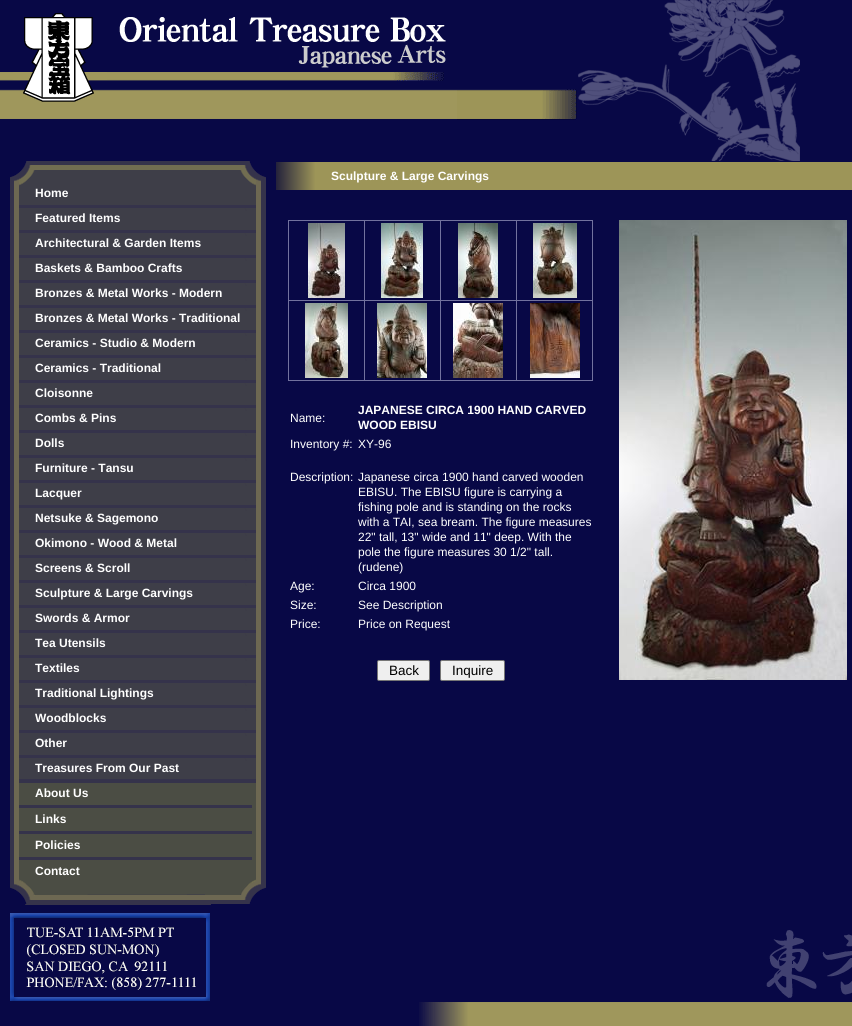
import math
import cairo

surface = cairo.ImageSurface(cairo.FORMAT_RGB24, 852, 1026)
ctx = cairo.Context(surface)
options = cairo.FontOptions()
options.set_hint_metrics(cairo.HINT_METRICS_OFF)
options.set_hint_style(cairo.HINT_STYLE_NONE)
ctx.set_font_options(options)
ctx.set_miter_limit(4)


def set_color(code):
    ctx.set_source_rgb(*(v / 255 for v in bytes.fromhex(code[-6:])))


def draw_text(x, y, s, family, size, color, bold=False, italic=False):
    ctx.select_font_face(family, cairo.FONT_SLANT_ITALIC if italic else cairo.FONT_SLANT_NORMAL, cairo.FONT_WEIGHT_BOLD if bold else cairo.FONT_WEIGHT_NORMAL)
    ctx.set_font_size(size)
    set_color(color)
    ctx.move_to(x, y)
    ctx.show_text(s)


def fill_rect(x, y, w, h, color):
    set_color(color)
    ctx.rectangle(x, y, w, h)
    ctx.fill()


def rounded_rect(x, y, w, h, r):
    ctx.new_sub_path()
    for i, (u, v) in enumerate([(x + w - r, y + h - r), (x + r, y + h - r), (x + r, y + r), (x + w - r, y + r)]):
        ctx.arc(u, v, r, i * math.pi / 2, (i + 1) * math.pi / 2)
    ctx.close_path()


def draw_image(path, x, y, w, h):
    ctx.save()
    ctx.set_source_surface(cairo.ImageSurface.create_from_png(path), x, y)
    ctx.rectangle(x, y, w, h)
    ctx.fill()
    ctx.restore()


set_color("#080846")
ctx.paint()
draw_image("assets/img1.png", 0, 0, 800, 161)
draw_image("assets/img2.png", 10, 161, 25, 25)
draw_image("assets/img3.png", 35, 161, 205, 25)
draw_image("assets/img4.png", 240, 161, 26, 25)
draw_image("assets/img5.png", 10, 186, 25, 15)
fill_rect(35, 186, 205, 15, "#3e3e48")
draw_text(35, 197, "Home", "Liberation Sans", 12, "#ffffff", bold=True)
draw_image("assets/img6.png", 240, 186, 26, 15)
draw_image("assets/img7.png", 10, 201, 25, 10)
draw_image("assets/img8.png", 35, 201, 205, 10)
draw_image("assets/img9.png", 240, 201, 26, 10)
draw_image("assets/img5.png", 10, 211, 25, 15)
fill_rect(35, 211, 205, 15, "#3e3e48")
draw_text(35, 222, "Featured Items", "Liberation Sans", 12, "#ffffff", bold=True)
draw_image("assets/img6.png", 240, 211, 26, 15)
draw_image("assets/img7.png", 10, 226, 25, 10)
draw_image("assets/img8.png", 35, 226, 205, 10)
draw_image("assets/img9.png", 240, 226, 26, 10)
draw_image("assets/img5.png", 10, 236, 25, 15)
fill_rect(35, 236, 205, 15, "#3e3e48")
draw_text(35, 247, "Architectural & Garden Items", "Liberation Sans", 12, "#ffffff", bold=True)
draw_image("assets/img6.png", 240, 236, 26, 15)
draw_image("assets/img7.png", 10, 251, 25, 10)
draw_image("assets/img8.png", 35, 251, 205, 10)
draw_image("assets/img9.png", 240, 251, 26, 10)
draw_image("assets/img5.png", 10, 261, 25, 15)
fill_rect(35, 261, 205, 15, "#3e3e48")
draw_text(35, 272, "Baskets & Bamboo Crafts", "Liberation Sans", 12, "#ffffff", bold=True)
draw_image("assets/img6.png", 240, 261, 26, 15)
draw_image("assets/img7.png", 10, 276, 25, 10)
draw_image("assets/img8.png", 35, 276, 205, 10)
draw_image("assets/img9.png", 240, 276, 26, 10)
draw_image("assets/img5.png", 10, 286, 25, 15)
fill_rect(35, 286, 205, 15, "#3e3e48")
draw_text(35, 297, "Bronzes & Metal Works - Modern", "Liberation Sans", 12, "#ffffff", bold=True)
draw_image("assets/img6.png", 240, 286, 26, 15)
draw_image("assets/img7.png", 10, 301, 25, 10)
draw_image("assets/img8.png", 35, 301, 205, 10)
draw_image("assets/img9.png", 240, 301, 26, 10)
draw_image("assets/img5.png", 10, 311, 25, 15)
fill_rect(35, 311, 205, 15, "#3e3e48")
draw_text(35, 322, "Bronzes & Metal Works - Traditional", "Liberation Sans", 12, "#ffffff", bold=True)
draw_image("assets/img6.png", 240, 311, 26, 15)
draw_image("assets/img7.png", 10, 326, 25, 10)
draw_image("assets/img8.png", 35, 326, 205, 10)
draw_image("assets/img9.png", 240, 326, 26, 10)
draw_image("assets/img5.png", 10, 336, 25, 15)
fill_rect(35, 336, 205, 15, "#3e3e48")
draw_text(35, 347, "Ceramics - Studio & Modern", "Liberation Sans", 12, "#ffffff", bold=True)
draw_image("assets/img6.png", 240, 336, 26, 15)
draw_image("assets/img7.png", 10, 351, 25, 10)
draw_image("assets/img8.png", 35, 351, 205, 10)
draw_image("assets/img9.png", 240, 351, 26, 10)
draw_image("assets/img5.png", 10, 361, 25, 15)
fill_rect(35, 361, 205, 15, "#3e3e48")
draw_text(35, 372, "Ceramics - Traditional", "Liberation Sans", 12, "#ffffff", bold=True)
draw_image("assets/img6.png", 240, 361, 26, 15)
draw_image("assets/img7.png", 10, 376, 25, 10)
draw_image("assets/img8.png", 35, 376, 205, 10)
draw_image("assets/img9.png", 240, 376, 26, 10)
draw_image("assets/img5.png", 10, 386, 25, 15)
fill_rect(35, 386, 205, 15, "#3e3e48")
draw_text(35, 397, "Cloisonne", "Liberation Sans", 12, "#ffffff", bold=True)
draw_image("assets/img6.png", 240, 386, 26, 15)
draw_image("assets/img7.png", 10, 401, 25, 10)
draw_image("assets/img8.png", 35, 401, 205, 10)
draw_image("assets/img9.png", 240, 401, 26, 10)
draw_image("assets/img5.png", 10, 411, 25, 15)
fill_rect(35, 411, 205, 15, "#3e3e48")
draw_text(35, 422, "Combs & Pins", "Liberation Sans", 12, "#ffffff", bold=True)
draw_image("assets/img6.png", 240, 411, 26, 15)
draw_image("assets/img7.png", 10, 426, 25, 10)
draw_image("assets/img8.png", 35, 426, 205, 10)
draw_image("assets/img9.png", 240, 426, 26, 10)
draw_image("assets/img5.png", 10, 436, 25, 15)
fill_rect(35, 436, 205, 15, "#3e3e48")
draw_text(35, 447, "Dolls", "Liberation Sans", 12, "#ffffff", bold=True)
draw_image("assets/img6.png", 240, 436, 26, 15)
draw_image("assets/img7.png", 10, 451, 25, 10)
draw_image("assets/img8.png", 35, 451, 205, 10)
draw_image("assets/img9.png", 240, 451, 26, 10)
draw_image("assets/img5.png", 10, 461, 25, 15)
fill_rect(35, 461, 205, 15, "#3e3e48")
draw_text(35, 472, "Furniture - Tansu", "Liberation Sans", 12, "#ffffff", bold=True)
draw_image("assets/img6.png", 240, 461, 26, 15)
draw_image("assets/img7.png", 10, 476, 25, 10)
draw_image("assets/img8.png", 35, 476, 205, 10)
draw_image("assets/img9.png", 240, 476, 26, 10)
draw_image("assets/img5.png", 10, 486, 25, 15)
fill_rect(35, 486, 205, 15, "#3e3e48")
draw_text(35, 497, "Lacquer", "Liberation Sans", 12, "#ffffff", bold=True)
draw_image("assets/img6.png", 240, 486, 26, 15)
draw_image("assets/img7.png", 10, 501, 25, 10)
draw_image("assets/img8.png", 35, 501, 205, 10)
draw_image("assets/img9.png", 240, 501, 26, 10)
draw_image("assets/img5.png", 10, 511, 25, 15)
fill_rect(35, 511, 205, 15, "#3e3e48")
draw_text(35, 522, "Netsuke & Sagemono", "Liberation Sans", 12, "#ffffff", bold=True)
draw_image("assets/img6.png", 240, 511, 26, 15)
draw_image("assets/img7.png", 10, 526, 25, 10)
draw_image("assets/img8.png", 35, 526, 205, 10)
draw_image("assets/img9.png", 240, 526, 26, 10)
draw_image("assets/img5.png", 10, 536, 25, 15)
fill_rect(35, 536, 205, 15, "#3e3e48")
draw_text(35, 547, "Okimono - Wood & Metal", "Liberation Sans", 12, "#ffffff", bold=True)
draw_image("assets/img6.png", 240, 536, 26, 15)
draw_image("assets/img7.png", 10, 551, 25, 10)
draw_image("assets/img8.png", 35, 551, 205, 10)
draw_image("assets/img9.png", 240, 551, 26, 10)
draw_image("assets/img5.png", 10, 561, 25, 15)
fill_rect(35, 561, 205, 15, "#3e3e48")
draw_text(35, 572, "Screens & Scroll", "Liberation Sans", 12, "#ffffff", bold=True)
draw_image("assets/img6.png", 240, 561, 26, 15)
draw_image("assets/img7.png", 10, 576, 25, 10)
draw_image("assets/img8.png", 35, 576, 205, 10)
draw_image("assets/img9.png", 240, 576, 26, 10)
draw_image("assets/img5.png", 10, 586, 25, 15)
fill_rect(35, 586, 205, 15, "#3e3e48")
draw_text(35, 597, "Sculpture & Large Carvings", "Liberation Sans", 12, "#ffffff", bold=True)
draw_image("assets/img6.png", 240, 586, 26, 15)
draw_image("assets/img7.png", 10, 601, 25, 10)
draw_image("assets/img8.png", 35, 601, 205, 10)
draw_image("assets/img9.png", 240, 601, 26, 10)
draw_image("assets/img5.png", 10, 611, 25, 15)
fill_rect(35, 611, 205, 15, "#3e3e48")
draw_text(35, 622, "Swords & Armor", "Liberation Sans", 12, "#ffffff", bold=True)
draw_image("assets/img6.png", 240, 611, 26, 15)
draw_image("assets/img7.png", 10, 626, 25, 10)
draw_image("assets/img8.png", 35, 626, 205, 10)
draw_image("assets/img9.png", 240, 626, 26, 10)
draw_image("assets/img5.png", 10, 636, 25, 15)
fill_rect(35, 636, 205, 15, "#3e3e48")
draw_text(35, 647, "Tea Utensils", "Liberation Sans", 12, "#ffffff", bold=True)
draw_image("assets/img6.png", 240, 636, 26, 15)
draw_image("assets/img7.png", 10, 651, 25, 10)
draw_image("assets/img8.png", 35, 651, 205, 10)
draw_image("assets/img9.png", 240, 651, 26, 10)
draw_image("assets/img5.png", 10, 661, 25, 15)
fill_rect(35, 661, 205, 15, "#3e3e48")
draw_text(35, 672, "Textiles", "Liberation Sans", 12, "#ffffff", bold=True)
draw_image("assets/img6.png", 240, 661, 26, 15)
draw_image("assets/img7.png", 10, 676, 25, 10)
draw_image("assets/img8.png", 35, 676, 205, 10)
draw_image("assets/img9.png", 240, 676, 26, 10)
draw_image("assets/img5.png", 10, 686, 25, 15)
fill_rect(35, 686, 205, 15, "#3e3e48")
draw_text(35, 697, "Traditional Lightings", "Liberation Sans", 12, "#ffffff", bold=True)
draw_image("assets/img6.png", 240, 686, 26, 15)
draw_image("assets/img7.png", 10, 701, 25, 10)
draw_image("assets/img8.png", 35, 701, 205, 10)
draw_image("assets/img9.png", 240, 701, 26, 10)
draw_image("assets/img5.png", 10, 711, 25, 15)
fill_rect(35, 711, 205, 15, "#3e3e48")
draw_text(35, 722, "Woodblocks", "Liberation Sans", 12, "#ffffff", bold=True)
draw_image("assets/img6.png", 240, 711, 26, 15)
draw_image("assets/img7.png", 10, 726, 25, 10)
draw_image("assets/img8.png", 35, 726, 205, 10)
draw_image("assets/img9.png", 240, 726, 26, 10)
draw_image("assets/img5.png", 10, 736, 25, 15)
fill_rect(35, 736, 205, 15, "#3e3e48")
draw_text(35, 747, "Other", "Liberation Sans", 12, "#ffffff", bold=True)
draw_image("assets/img6.png", 240, 736, 26, 15)
draw_image("assets/img7.png", 10, 751, 25, 10)
draw_image("assets/img8.png", 35, 751, 205, 10)
draw_image("assets/img9.png", 240, 751, 26, 10)
draw_image("assets/img5.png", 10, 761, 25, 15)
fill_rect(35, 761, 205, 15, "#3e3e48")
draw_text(35, 772, "Treasures From Our Past", "Liberation Sans", 12, "#ffffff", bold=True)
draw_image("assets/img6.png", 240, 761, 26, 15)
draw_image("assets/img10.png", 10, 776, 25, 10)
draw_image("assets/img11.png", 35, 776, 205, 10)
draw_image("assets/img12.png", 240, 776, 26, 10)
draw_image("assets/img13.png", 10, 786, 25, 15)
fill_rect(35, 786, 205, 15, "#4b4d44")
draw_text(35, 797, "About Us", "Liberation Sans", 12, "#ffffff", bold=True)
draw_image("assets/img14.png", 240, 786, 26, 15)
draw_image("assets/img15.png", 10, 801, 25, 11)
draw_image("assets/img16.png", 35, 801, 205, 11)
draw_image("assets/img17.png", 240, 801, 26, 11)
draw_image("assets/img13.png", 10, 812, 25, 15)
fill_rect(35, 812, 205, 15, "#4b4d44")
draw_text(35, 823, "Links", "Liberation Sans", 12, "#ffffff", bold=True)
draw_image("assets/img14.png", 240, 812, 26, 15)
draw_image("assets/img15.png", 10, 827, 25, 11)
draw_image("assets/img16.png", 35, 827, 205, 11)
draw_image("assets/img17.png", 240, 827, 26, 11)
draw_image("assets/img13.png", 10, 838, 25, 15)
fill_rect(35, 838, 205, 15, "#4b4d44")
draw_text(35, 849, "Policies", "Liberation Sans", 12, "#ffffff", bold=True)
draw_image("assets/img14.png", 240, 838, 26, 15)
draw_image("assets/img15.png", 10, 853, 25, 11)
draw_image("assets/img16.png", 35, 853, 205, 11)
draw_image("assets/img17.png", 240, 853, 26, 11)
draw_image("assets/img13.png", 10, 864, 25, 15)
fill_rect(35, 864, 205, 15, "#4b4d44")
draw_text(35, 875, "Contact", "Liberation Sans", 12, "#ffffff", bold=True)
draw_image("assets/img14.png", 240, 864, 26, 15)
draw_image("assets/img18.png", 10, 879, 25, 25)
draw_image("assets/img19.png", 35, 879, 205, 25)
draw_image("assets/img20.png", 240, 879, 26, 25)
draw_image("assets/img21.png", 10, 904, 201, 97)
draw_image("assets/img22.png", 276, 162, 55, 28)
fill_rect(331, 162, 521, 28, "#9d9558")
draw_text(331, 180, "Sculpture & Large Carvings", "Liberation Sans", 12, "#ffffff", bold=True)
fill_rect(288, 220, 1, 161, "#72729e")
fill_rect(289, 220, 304, 1, "#72729e")
fill_rect(364, 220, 1, 161, "#72729e")
fill_rect(289, 300, 76, 1, "#72729e")
draw_image("assets/img23.png", 308, 223, 37, 75)
fill_rect(440, 220, 1, 161, "#72729e")
fill_rect(365, 300, 76, 1, "#72729e")
draw_image("assets/img24.png", 381, 223, 42, 75)
fill_rect(516, 220, 1, 161, "#72729e")
fill_rect(441, 300, 76, 1, "#72729e")
draw_image("assets/img25.png", 458, 223, 40, 75)
fill_rect(592, 220, 1, 161, "#72729e")
fill_rect(517, 300, 76, 1, "#72729e")
draw_image("assets/img26.png", 533, 223, 44, 75)
fill_rect(289, 380, 304, 1, "#72729e")
draw_image("assets/img27.png", 305, 303, 43, 75)
draw_image("assets/img28.png", 377, 303, 50, 75)
draw_image("assets/img29.png", 453, 303, 50, 75)
draw_image("assets/img30.png", 530, 303, 50, 75)
draw_text(290, 422, "Name:", "Liberation Sans", 12, "#ffffff")
draw_text(358, 414, "JAPANESE CIRCA 1900 HAND CARVED", "Liberation Sans", 12, "#ffffff", bold=True)
draw_text(358, 429, "WOOD EBISU", "Liberation Sans", 12, "#ffffff", bold=True)
draw_text(290, 448, "Inventory #:", "Liberation Sans", 12, "#ffffff")
draw_text(358, 448, "XY-96", "Liberation Sans", 12, "#ffffff")
draw_text(290, 481, "Description:", "Liberation Sans", 12, "#ffffff")
draw_text(358, 481, "Japanese circa 1900 hand carved wooden", "Liberation Sans", 12, "#ffffff")
draw_text(358, 496, "EBISU. The EBISU figure is carrying a", "Liberation Sans", 12, "#ffffff")
draw_text(358, 511, "fishing pole and is standing on the rocks", "Liberation Sans", 12, "#ffffff")
draw_text(358, 526, "with a TAI, sea bream. The figure measures", "Liberation Sans", 12, "#ffffff")
draw_text(358, 541, "22\" tall, 13\" wide and 11\" deep. With the", "Liberation Sans", 12, "#ffffff")
draw_text(358, 556, "pole the figure measures 30 1/2\" tall.", "Liberation Sans", 12, "#ffffff")
draw_text(358, 571, "(rudene)", "Liberation Sans", 12, "#ffffff")
draw_text(290, 590, "Age:", "Liberation Sans", 12, "#ffffff")
draw_text(358, 590, "Circa 1900", "Liberation Sans", 12, "#ffffff")
draw_text(290, 609, "Size:", "Liberation Sans", 12, "#ffffff")
draw_text(358, 609, "See Description", "Liberation Sans", 12, "#ffffff")
draw_text(290, 628, "Price:", "Liberation Sans", 12, "#ffffff")
draw_text(358, 628, "Price on Request", "Liberation Sans", 12, "#ffffff")
set_color("#efefef")
rounded_rect(377.5, 660.5, 52, 20, 1.5)
ctx.fill_preserve()
set_color("#767676")
ctx.set_line_width(1)
ctx.stroke()
draw_text(389, 675, "Back", "Liberation Sans", 13.5, "#000000")
set_color("#efefef")
rounded_rect(440.5, 660.5, 64, 20, 1.5)
ctx.fill_preserve()
set_color("#767676")
ctx.stroke()
draw_text(452, 675, "Inquire", "Liberation Sans", 13.5, "#000000")
draw_image("assets/img31.png", 619, 220, 228, 460)
draw_image("assets/img32.png", 766, 930, 86, 68)
draw_image("assets/img33.png", 419, 1002, 433, 24)
surface.write_to_png("output.png")
